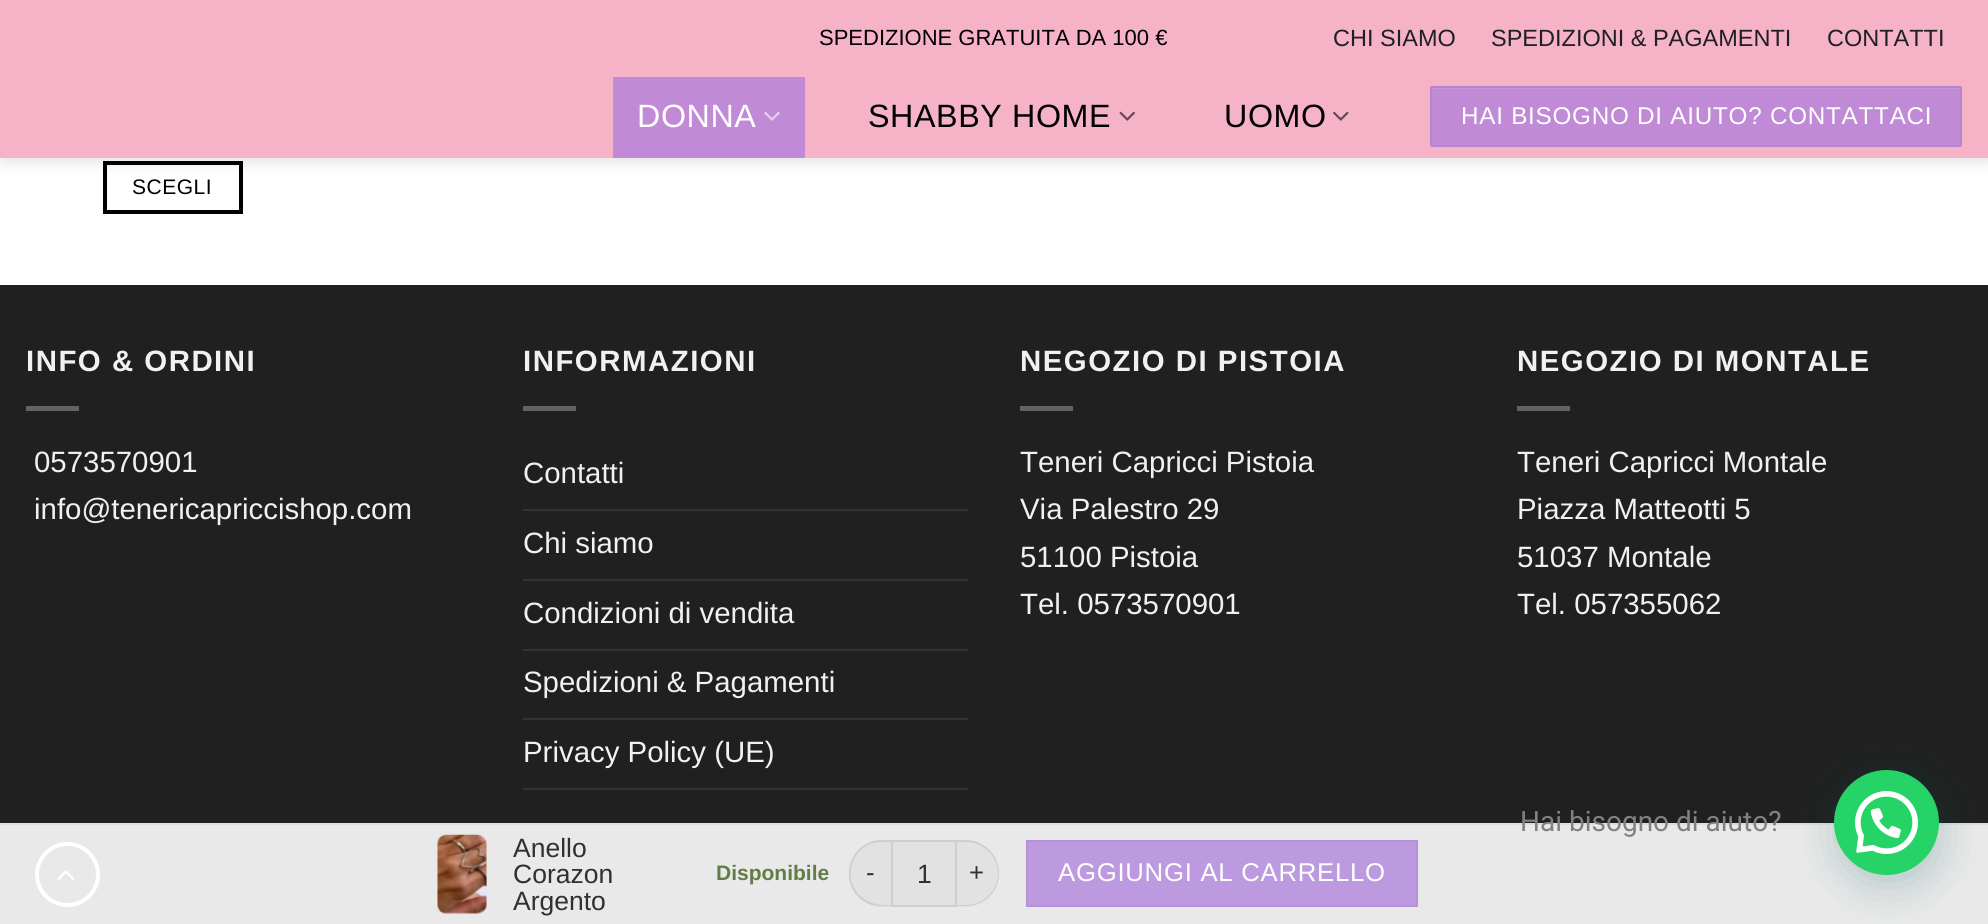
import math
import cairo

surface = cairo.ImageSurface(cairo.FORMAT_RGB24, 1988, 924)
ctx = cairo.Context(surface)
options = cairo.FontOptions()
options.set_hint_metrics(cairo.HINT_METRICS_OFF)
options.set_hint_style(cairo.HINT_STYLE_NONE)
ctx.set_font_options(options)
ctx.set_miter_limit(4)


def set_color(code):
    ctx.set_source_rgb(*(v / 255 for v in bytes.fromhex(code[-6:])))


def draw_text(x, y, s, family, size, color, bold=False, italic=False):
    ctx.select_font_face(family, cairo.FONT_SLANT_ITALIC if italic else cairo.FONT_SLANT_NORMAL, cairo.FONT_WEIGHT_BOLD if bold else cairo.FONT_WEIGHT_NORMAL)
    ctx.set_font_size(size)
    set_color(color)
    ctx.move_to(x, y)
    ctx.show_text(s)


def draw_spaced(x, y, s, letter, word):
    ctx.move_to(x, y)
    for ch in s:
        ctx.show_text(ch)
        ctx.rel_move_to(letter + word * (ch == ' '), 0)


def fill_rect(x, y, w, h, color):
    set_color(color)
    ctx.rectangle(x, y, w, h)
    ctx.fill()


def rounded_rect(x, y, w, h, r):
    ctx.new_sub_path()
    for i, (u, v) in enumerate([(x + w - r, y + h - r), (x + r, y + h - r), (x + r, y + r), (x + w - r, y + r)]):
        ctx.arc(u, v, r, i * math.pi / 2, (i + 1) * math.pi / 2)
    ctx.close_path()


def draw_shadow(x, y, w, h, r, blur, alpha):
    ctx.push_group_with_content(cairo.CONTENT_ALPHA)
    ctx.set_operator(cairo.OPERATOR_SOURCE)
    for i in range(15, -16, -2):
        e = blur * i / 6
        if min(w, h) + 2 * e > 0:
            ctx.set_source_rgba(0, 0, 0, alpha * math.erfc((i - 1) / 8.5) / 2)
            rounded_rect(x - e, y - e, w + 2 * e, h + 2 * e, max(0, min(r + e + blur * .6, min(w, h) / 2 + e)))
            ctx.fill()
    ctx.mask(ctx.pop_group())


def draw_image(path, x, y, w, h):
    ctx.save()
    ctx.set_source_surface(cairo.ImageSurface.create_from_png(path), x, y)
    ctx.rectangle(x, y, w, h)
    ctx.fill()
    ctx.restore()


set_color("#ffffff")
ctx.paint()
ctx.rectangle(105, 163, 136, 49)
set_color("#000000")
ctx.set_line_width(4)
ctx.stroke()
set_color("#000000")
draw_shadow(2, 2, 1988, 157, 0, 9, 0.15)
fill_rect(0, 0, 1988, 158, "#f6b3c7")
draw_text(819, 45, "SPEDIZIONE GRATUITA DA 100 €", "Liberation Sans", 22, "#000000")
draw_text(1333, 46, "CHI SIAMO", "Liberation Sans", 23.5, "#202020")
draw_text(1491, 46, "SPEDIZIONI & PAGAMENTI", "Liberation Sans", 23.5, "#202020")
draw_text(1827, 46, "CONTATTI", "Liberation Sans", 23.5, "#202020")
fill_rect(613, 77, 192, 81, "#c18ad6")
ctx.set_font_size(32.25)
set_color("#ffffff")
draw_spaced(637, 127, "DONNA", 0.6, 0)
draw_image("assets/img1.png", 764, 111, 16, 10)
set_color("#000000")
draw_spaced(868, 127, "SHABBY HOME", 0.6, 0)
draw_image("assets/img2.png", 1119, 111, 16, 10)
draw_spaced(1224, 127, "UOMO", 0.6, 0)
draw_image("assets/img3.png", 1333, 111, 16, 10)
set_color("#c18ad6")
rounded_rect(1430, 86, 532, 61, 2)
ctx.fill()
ctx.rectangle(1431, 87, 530, 59)
ctx.set_source_rgba(0, 0, 0, 0.05)
ctx.set_line_width(2)
ctx.stroke()
ctx.save()
ctx.rectangle(1432, 88, 528, 57)
ctx.clip()
set_color("#c796da")
ctx.set_fill_rule(cairo.FILL_RULE_EVEN_ODD)
ctx.new_path()
ctx.move_to(1127, -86)
ctx.line_to(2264, -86)
ctx.line_to(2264, 318)
ctx.line_to(1127, 318)
ctx.close_path()
ctx.move_to(1302, 89)
ctx.line_to(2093, 89)
ctx.line_to(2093, 147)
ctx.line_to(1302, 147)
ctx.close_path()
ctx.fill()
ctx.restore()
ctx.set_font_size(24.25)
set_color("#ffffff")
draw_spaced(1461, 124, "HAI BISOGNO DI AIUTO? CONTATTACI", 0.75, 0)
ctx.set_font_size(21)
set_color("#000000")
draw_spaced(132, 194, "SCEGLI", 0.5, 0)
fill_rect(0, 287, 1988, 637, "#202020")
fill_rect(0, 285, 1988, 2, "#1e1e1e")
ctx.select_font_face("Liberation Sans", cairo.FONT_SLANT_NORMAL, cairo.FONT_WEIGHT_BOLD)
ctx.set_font_size(29.4)
set_color("#f1f1f1")
draw_spaced(26, 371, "INFO & ORDINI", 1.5, 0)
fill_rect(26, 406, 53, 5, "#636363")
draw_text(34, 472, "0573570901", "Liberation Sans", 29.4, "#f1f1f1")
draw_text(34, 519, "info@tenericapriccishop.com", "Liberation Sans", 29.4, "#f1f1f1")
ctx.select_font_face("Liberation Sans", cairo.FONT_SLANT_NORMAL, cairo.FONT_WEIGHT_BOLD)
draw_spaced(523, 371, "INFORMAZIONI", 1.5, 0)
fill_rect(523, 406, 53, 5, "#636363")
draw_text(523, 483, "Contatti", "Liberation Sans", 29.4, "#f1f1f1")
fill_rect(523, 509, 445, 2, "#323232")
draw_text(523, 553, "Chi siamo", "Liberation Sans", 29.4, "#f1f1f1")
fill_rect(523, 579, 445, 2, "#323232")
draw_text(523, 623, "Condizioni di vendita", "Liberation Sans", 29.4, "#f1f1f1")
fill_rect(523, 649, 445, 2, "#323232")
draw_text(523, 692, "Spedizioni & Pagamenti", "Liberation Sans", 29.4, "#f1f1f1")
fill_rect(523, 718, 445, 2, "#323232")
draw_text(523, 762, "Privacy Policy (UE)", "Liberation Sans", 29.4, "#f1f1f1")
fill_rect(523, 788, 445, 2, "#323232")
ctx.select_font_face("Liberation Sans", cairo.FONT_SLANT_NORMAL, cairo.FONT_WEIGHT_BOLD)
set_color("#f1f1f1")
draw_spaced(1020, 371, "NEGOZIO DI PISTOIA", 1.5, 0)
fill_rect(1020, 406, 53, 5, "#636363")
draw_text(1020, 472, "Teneri Capricci Pistoia", "Liberation Sans", 29.4, "#f1f1f1")
draw_text(1020, 519, "Via Palestro 29", "Liberation Sans", 29.4, "#f1f1f1")
draw_text(1020, 567, "51100 Pistoia", "Liberation Sans", 29.4, "#f1f1f1")
draw_text(1020, 614, "Tel. 0573570901", "Liberation Sans", 29.4, "#f1f1f1")
ctx.select_font_face("Liberation Sans", cairo.FONT_SLANT_NORMAL, cairo.FONT_WEIGHT_BOLD)
draw_spaced(1517, 371, "NEGOZIO DI MONTALE", 1.5, 0)
fill_rect(1517, 406, 53, 5, "#636363")
draw_text(1517, 472, "Teneri Capricci Montale", "Liberation Sans", 29.4, "#f1f1f1")
draw_text(1517, 519, "Piazza Matteotti 5", "Liberation Sans", 29.4, "#f1f1f1")
draw_text(1517, 567, "51037 Montale", "Liberation Sans", 29.4, "#f1f1f1")
draw_text(1517, 614, "Tel. 057355062", "Liberation Sans", 29.4, "#f1f1f1")
ctx.set_source_rgba(1, 1, 1, 0.9)
ctx.rectangle(0, 825, 1988, 99)
ctx.fill()
ctx.arc(67.5, 874.5, 30.5, 0, 2 * math.pi)
set_color("#ffffff")
ctx.set_line_width(4)
ctx.stroke()
draw_image("assets/img4.png", 57, 870, 18, 10)
fill_rect(0, 823, 1988, 2, "#dddddd")
set_color("#075e54")
draw_shadow(1836, 781, 105, 105, 52.5, 21, 0.24)
set_color("#25d366")
ctx.arc(1886.5, 822.5, 52.5, 0, 2 * math.pi)
ctx.fill()
draw_image("assets/img5.png", 1855, 791, 63, 63)
draw_text(1520, 831, "Hai bisogno di aiuto?", "Roboto", 28, "#818181")
draw_image("assets/img6.png", 437, 834, 50, 80)
draw_text(513, 857, "Anello", "Liberation Sans", 26.5, "#303030")
draw_text(513, 883, "Corazon", "Liberation Sans", 26.5, "#303030")
draw_text(513, 910, "Argento", "Liberation Sans", 26.5, "#303030")
draw_text(716, 880, "Disponibile", "Liberation Sans", 21, "#627d47", bold=True)
set_color("#e2e2e2")
ctx.new_path()
ctx.move_to(882, 840)
ctx.line_to(891, 840)
ctx.line_to(891, 907)
ctx.line_to(882, 907)
ctx.curve_to(864, 907, 849, 892, 849, 874)
ctx.line_to(849, 873)
ctx.curve_to(849, 855, 864, 840, 882, 840)
ctx.close_path()
ctx.fill()
ctx.set_source_rgba(0, 0, 0, 0.09)
ctx.set_fill_rule(cairo.FILL_RULE_EVEN_ODD)
ctx.new_path()
ctx.move_to(882, 840)
ctx.line_to(891, 840)
ctx.line_to(891, 906)
ctx.curve_to(883, 906, 876, 907, 869, 904)
ctx.curve_to(836, 890, 846, 840, 882, 840)
ctx.close_path()
ctx.move_to(882, 842)
ctx.line_to(891, 842)
ctx.line_to(891, 905)
ctx.curve_to(884, 905, 876, 905, 870, 902)
ctx.curve_to(838, 889, 848, 842, 882, 842)
ctx.close_path()
ctx.fill()
ctx.select_font_face("Liberation Sans")
ctx.set_font_size(25.7)
set_color("#303030")
draw_spaced(866, 881, "-", 0.75, 0)
set_color("#e2e2e2")
ctx.rectangle(892, 841, 64, 65)
ctx.fill_preserve()
set_color("#cecece")
ctx.set_line_width(2)
ctx.stroke()
draw_text(917, 883, "1", "Liberation Sans", 26.5, "#303030")
set_color("#e2e2e2")
ctx.new_path()
ctx.move_to(957, 840)
ctx.line_to(966, 840)
ctx.curve_to(984, 840, 999, 855, 999, 873)
ctx.line_to(999, 874)
ctx.curve_to(999, 892, 984, 907, 966, 907)
ctx.line_to(957, 907)
ctx.close_path()
ctx.fill()
ctx.set_source_rgba(0, 0, 0, 0.09)
ctx.new_path()
ctx.move_to(957, 840)
ctx.line_to(966, 840)
ctx.curve_to(984, 840, 999, 855, 999, 873)
ctx.curve_to(999, 892, 984, 906, 966, 906)
ctx.line_to(957, 906)
ctx.close_path()
ctx.move_to(957, 842)
ctx.line_to(966, 842)
ctx.curve_to(983, 842, 998, 856, 998, 873)
ctx.curve_to(998, 891, 983, 905, 966, 905)
ctx.line_to(957, 905)
ctx.close_path()
ctx.fill()
ctx.set_font_size(25.7)
set_color("#303030")
draw_spaced(969, 881, "+", 0.75, 0)
set_color("#bd9ae0")
ctx.rectangle(1027, 841, 390, 65)
ctx.fill_preserve()
set_color("#b492d5")
ctx.stroke()
set_color("#ffffff")
draw_spaced(1058, 881, "AGGIUNGI AL CARRELLO", 0.75, 0)
surface.write_to_png("output.png")
